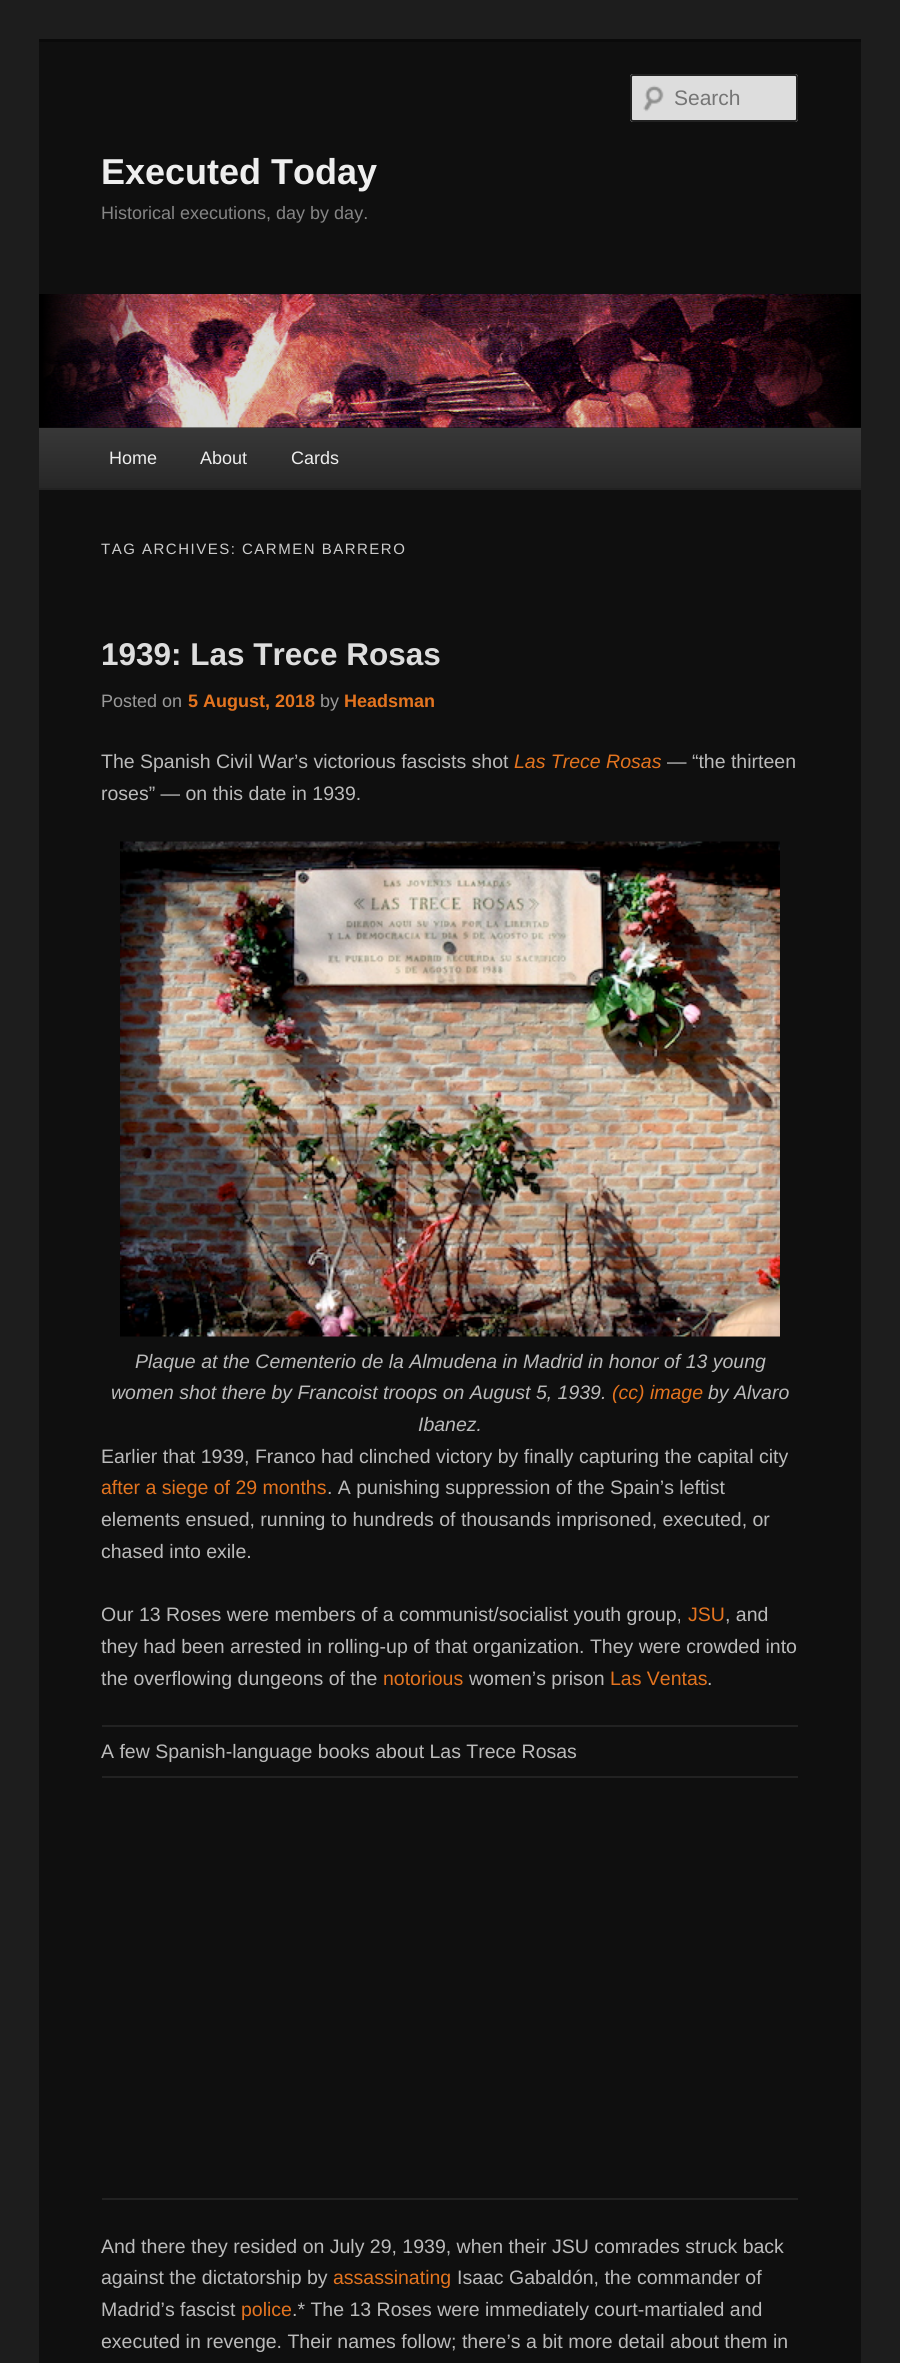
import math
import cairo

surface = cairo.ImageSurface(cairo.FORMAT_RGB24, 900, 2363)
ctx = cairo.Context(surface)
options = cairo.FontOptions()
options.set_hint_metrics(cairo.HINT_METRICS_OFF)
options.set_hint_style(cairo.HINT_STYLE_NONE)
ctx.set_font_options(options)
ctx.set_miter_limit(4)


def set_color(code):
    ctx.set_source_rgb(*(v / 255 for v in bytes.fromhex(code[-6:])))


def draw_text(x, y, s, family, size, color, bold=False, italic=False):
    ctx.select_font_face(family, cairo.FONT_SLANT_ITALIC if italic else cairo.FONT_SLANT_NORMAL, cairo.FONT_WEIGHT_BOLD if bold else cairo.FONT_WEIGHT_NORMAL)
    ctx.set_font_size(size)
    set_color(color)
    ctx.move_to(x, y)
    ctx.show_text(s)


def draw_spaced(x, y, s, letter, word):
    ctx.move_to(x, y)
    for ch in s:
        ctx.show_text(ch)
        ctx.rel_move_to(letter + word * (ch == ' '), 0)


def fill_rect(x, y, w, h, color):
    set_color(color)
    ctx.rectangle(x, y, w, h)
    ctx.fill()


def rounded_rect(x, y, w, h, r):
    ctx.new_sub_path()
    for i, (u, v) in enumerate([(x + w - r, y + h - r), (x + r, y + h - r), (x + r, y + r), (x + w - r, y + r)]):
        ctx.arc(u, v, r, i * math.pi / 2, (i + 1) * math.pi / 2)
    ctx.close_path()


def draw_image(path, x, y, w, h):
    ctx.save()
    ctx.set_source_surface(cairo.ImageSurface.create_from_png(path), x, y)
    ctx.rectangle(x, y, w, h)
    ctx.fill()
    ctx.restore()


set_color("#1d1d1d")
ctx.paint()
fill_rect(39, 42, 822, 2321, "#0f0f0f")
fill_rect(39, 39, 822, 3, "#0a0a0a")
set_color("#dddddd")
rounded_rect(630, 74, 168, 48, 3)
ctx.fill()
draw_image("assets/img1.png", 643, 85, 21, 27)
rounded_rect(631, 75, 166, 46, 2)
set_color("#222222")
ctx.stroke()
draw_text(674, 105, "Search", "Liberation Sans", 21, "#757575")
draw_text(101, 184, "Executed Today", "Liberation Sans", 36, "#eeeeee", bold=True)
draw_text(101, 219, "Historical executions, day by day.", "Liberation Sans", 18, "#858585")
draw_image("assets/img2.png", 39, 294, 822, 134)
gradient = cairo.LinearGradient(450, 427, 450, 488)
gradient.add_color_stop_rgba(0, 0.22, 0.22, 0.22, 1)
gradient.add_color_stop_rgba(1, 0.153, 0.153, 0.153, 1)
ctx.set_source(gradient)
ctx.rectangle(39, 428, 822, 60)
ctx.fill()
fill_rect(39, 488, 822, 2, "#222222")
draw_text(109, 464, "Home", "Liberation Sans", 18, "#eeeeee")
draw_text(200, 464, "About", "Liberation Sans", 18, "#eeeeee")
draw_text(291, 464, "Cards", "Liberation Sans", 18, "#eeeeee")
ctx.set_font_size(15)
set_color("#cccccc")
draw_spaced(101, 554, "TAG ARCHIVES: CARMEN BARRERO", 1.5, 0)
draw_text(101, 665, "1939: Las Trece Rosas", "Liberation Sans", 31.5, "#dddddd", bold=True)
draw_text(101, 707, "Posted on", "Liberation Sans", 18, "#999999")
draw_text(188, 707, "5 August, 2018", "Liberation Sans", 18, "#e4741f", bold=True)
draw_text(320, 707, "by", "Liberation Sans", 18, "#999999")
draw_text(344, 707, "Headsman", "Liberation Sans", 18, "#e4741f", bold=True)
draw_text(101, 768, "The Spanish Civil War’s victorious fascists shot", "Liberation Sans", 19.5, "#bbbbbb")
draw_text(514, 768, "Las Trece Rosas", "Liberation Sans", 19.5, "#e4741f", italic=True)
draw_text(667, 768, "— “the thirteen", "Liberation Sans", 19.5, "#bbbbbb")
draw_text(101, 800, "roses” — on this date in 1939.", "Liberation Sans", 19.5, "#bbbbbb")
draw_image("assets/img3.png", 120, 841, 660, 496)
draw_text(135, 1368, "Plaque at the Cementerio de la Almudena in Madrid in honor of 13 young", "Liberation Sans", 19.5, "#bbbbbb", italic=True)
draw_text(111, 1399, "women shot there by Francoist troops on August 5, 1939.", "Liberation Sans", 19.5, "#bbbbbb", italic=True)
draw_text(612, 1399, "(cc) image", "Liberation Sans", 19.5, "#e4741f", italic=True)
draw_text(708, 1399, "by Alvaro", "Liberation Sans", 19.5, "#bbbbbb", italic=True)
draw_text(418, 1431, "Ibanez.", "Liberation Sans", 19.5, "#bbbbbb", italic=True)
draw_text(101, 1463, "Earlier that 1939, Franco had clinched victory by finally capturing the capital city", "Liberation Sans", 19.5, "#bbbbbb")
draw_text(101, 1494, "after a siege of 29 months", "Liberation Sans", 19.5, "#e4741f")
draw_text(327, 1494, ". A punishing suppression of the Spain’s leftist", "Liberation Sans", 19.5, "#bbbbbb")
draw_text(101, 1526, "elements ensued, running to hundreds of thousands imprisoned, executed, or", "Liberation Sans", 19.5, "#bbbbbb")
draw_text(101, 1558, "chased into exile.", "Liberation Sans", 19.5, "#bbbbbb")
draw_text(101, 1621, "Our 13 Roses were members of a communist/socialist youth group,", "Liberation Sans", 19.5, "#bbbbbb")
draw_text(688, 1621, "JSU", "Liberation Sans", 19.5, "#e4741f")
draw_text(725, 1621, ", and", "Liberation Sans", 19.5, "#bbbbbb")
draw_text(101, 1653, "they had been arrested in rolling-up of that organization. They were crowded into", "Liberation Sans", 19.5, "#bbbbbb")
draw_text(101, 1685, "the overflowing dungeons of the", "Liberation Sans", 19.5, "#bbbbbb")
draw_text(383, 1685, "notorious", "Liberation Sans", 19.5, "#e4741f")
draw_text(469, 1685, "women’s prison", "Liberation Sans", 19.5, "#bbbbbb")
draw_text(610, 1685, "Las Ventas", "Liberation Sans", 19.5, "#e4741f")
draw_text(707, 1685, ".", "Liberation Sans", 19.5, "#bbbbbb")
fill_rect(102, 2198, 696, 2, "#222222")
fill_rect(102, 1725, 696, 2, "#222222")
draw_text(101, 1758, "A few Spanish-language books about Las Trece Rosas", "Liberation Sans", 19.5, "#bbbbbb")
fill_rect(102, 1776, 696, 2, "#222222")
draw_text(101, 2253, "And there they resided on July 29, 1939, when their JSU comrades struck back", "Liberation Sans", 19.5, "#bbbbbb")
draw_text(101, 2284, "against the dictatorship by", "Liberation Sans", 19.5, "#bbbbbb")
draw_text(333, 2284, "assassinating", "Liberation Sans", 19.5, "#e4741f")
draw_text(457, 2284, "Isaac Gabaldón, the commander of", "Liberation Sans", 19.5, "#bbbbbb")
draw_text(101, 2316, "Madrid’s fascist", "Liberation Sans", 19.5, "#bbbbbb")
draw_text(241, 2316, "police", "Liberation Sans", 19.5, "#e4741f")
draw_text(292, 2316, ".* The 13 Roses were immediately court-martialed and", "Liberation Sans", 19.5, "#bbbbbb")
draw_text(101, 2348, "executed in revenge. Their names follow; there’s a bit more detail about them in", "Liberation Sans", 19.5, "#bbbbbb")
surface.write_to_png("output.png")
